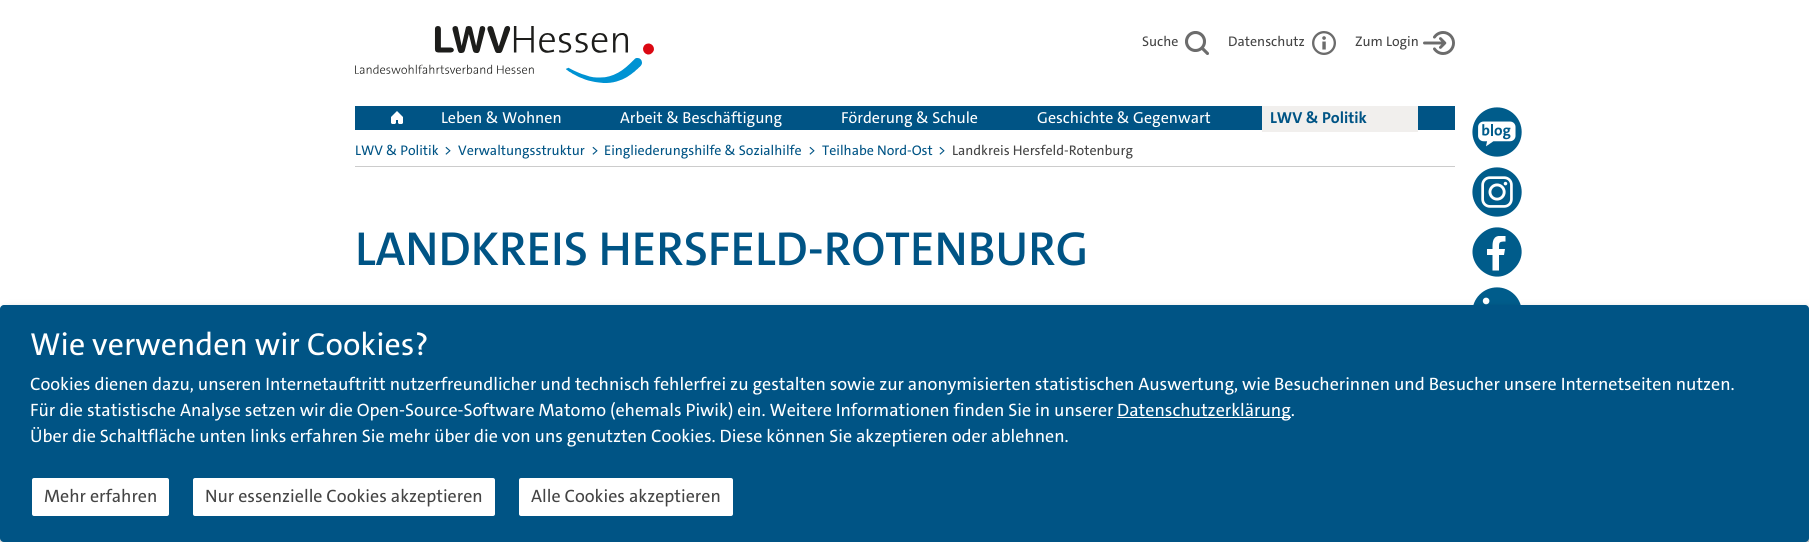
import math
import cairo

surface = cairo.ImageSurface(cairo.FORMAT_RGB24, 1809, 542)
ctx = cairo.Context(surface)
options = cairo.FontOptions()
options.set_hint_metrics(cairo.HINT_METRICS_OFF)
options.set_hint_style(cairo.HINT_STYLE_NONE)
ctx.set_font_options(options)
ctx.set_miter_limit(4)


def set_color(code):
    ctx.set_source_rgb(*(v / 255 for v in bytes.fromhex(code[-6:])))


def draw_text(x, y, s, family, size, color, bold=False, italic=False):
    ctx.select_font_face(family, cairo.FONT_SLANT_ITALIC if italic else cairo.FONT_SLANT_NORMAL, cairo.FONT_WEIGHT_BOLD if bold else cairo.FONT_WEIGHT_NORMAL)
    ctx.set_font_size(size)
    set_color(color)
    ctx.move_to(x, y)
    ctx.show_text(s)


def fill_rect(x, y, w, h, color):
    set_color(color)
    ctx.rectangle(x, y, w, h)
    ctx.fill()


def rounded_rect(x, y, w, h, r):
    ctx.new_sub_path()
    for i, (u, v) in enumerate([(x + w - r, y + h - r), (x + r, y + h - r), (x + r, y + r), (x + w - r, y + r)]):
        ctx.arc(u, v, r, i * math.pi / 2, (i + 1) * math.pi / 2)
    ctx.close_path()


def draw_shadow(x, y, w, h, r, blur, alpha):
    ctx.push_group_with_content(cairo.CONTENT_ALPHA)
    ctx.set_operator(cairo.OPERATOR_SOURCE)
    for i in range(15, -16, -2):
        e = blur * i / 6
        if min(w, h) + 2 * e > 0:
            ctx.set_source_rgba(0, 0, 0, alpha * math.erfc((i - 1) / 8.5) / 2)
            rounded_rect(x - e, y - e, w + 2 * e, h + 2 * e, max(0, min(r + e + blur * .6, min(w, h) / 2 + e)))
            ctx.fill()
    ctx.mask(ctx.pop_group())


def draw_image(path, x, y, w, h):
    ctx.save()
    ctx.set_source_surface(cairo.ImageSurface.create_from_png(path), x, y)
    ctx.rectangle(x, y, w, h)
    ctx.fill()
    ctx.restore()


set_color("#ffffff")
ctx.paint()
draw_image("assets/img1.png", 355, 26, 299, 57)
draw_text(1142, 46, "Suche", "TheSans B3 Medium", 14, "#444444")
draw_image("assets/img2.png", 1185, 31, 24, 24)
draw_text(1228, 46, "Datenschutz", "TheSans B3 Medium", 14, "#444444")
draw_image("assets/img3.png", 1312, 31, 24, 24)
draw_text(1355, 46, "Zum Login", "TheSans B3 Medium", 14, "#444444")
draw_image("assets/img4.png", 1423, 31, 32, 24)
fill_rect(355, 106, 1100, 24, "#005485")
draw_image("assets/img5.png", 391, 111, 12, 13)
draw_text(441, 123, "Leben & Wohnen", "TheSans B3 Medium", 16, "#ffffff")
draw_text(620, 123, "Arbeit & Beschäftigung", "TheSans B3 Medium", 16, "#ffffff")
draw_text(841, 123, "Förderung & Schule", "TheSans B3 Medium", 16, "#ffffff")
draw_text(1037, 123, "Geschichte & Gegenwart", "TheSans B3 Medium", 16, "#ffffff")
fill_rect(1262, 106, 156, 26, "#f1efed")
draw_text(1270, 123, "LWV & Politik", "TheSans B3", 16, "#005485", bold=True)
draw_image("assets/img6.png", 1472, 107, 50, 50)
draw_image("assets/img7.png", 1472, 167, 50, 50)
set_color("#005c8b")
ctx.set_fill_rule(cairo.FILL_RULE_EVEN_ODD)
ctx.new_path()
ctx.move_to(1480, 235)
ctx.curve_to(1503, 212, 1537, 246, 1514, 269)
ctx.curve_to(1492, 292, 1457, 258, 1480, 235)
ctx.close_path()
ctx.fill()
set_color("#ffffff")
ctx.new_path()
ctx.move_to(1492.5, 270.5)
ctx.line_to(1499, 270.5)
ctx.line_to(1499, 255)
ctx.line_to(1504, 255)
ctx.line_to(1505, 249)
ctx.line_to(1499, 249)
ctx.curve_to(1499, 242.5, 1498.5, 241.5, 1505.5, 241.5)
ctx.line_to(1505.5, 236)
ctx.line_to(1498.5, 236)
ctx.curve_to(1492, 237, 1492.5, 244, 1492.5, 249)
ctx.line_to(1487, 249)
ctx.line_to(1487, 255)
ctx.line_to(1492.5, 255)
ctx.close_path()
ctx.fill()
draw_image("assets/img8.png", 1473, 287, 48, 18)
draw_text(355, 155, "LWV & Politik", "TheSans B3 Medium", 14, "#005485")
draw_text(444, 155, ">", "TheSans B3 Medium", 14, "#005485")
draw_text(458, 155, "Verwaltungsstruktur", "TheSans B3 Medium", 14, "#005485")
draw_text(591, 155, ">", "TheSans B3 Medium", 14, "#005485")
draw_text(604, 155, "Eingliederungshilfe & Sozialhilfe", "TheSans B3 Medium", 14, "#005485")
draw_text(808, 155, ">", "TheSans B3 Medium", 14, "#005485")
draw_text(822, 155, "Teilhabe Nord-Ost", "TheSans B3 Medium", 14, "#005485")
draw_text(938, 155, ">", "TheSans B3 Medium", 14, "#005485")
draw_text(952, 155, "Landkreis Hersfeld-Rotenburg", "TheSans B3 Medium", 14, "#444444")
fill_rect(355, 166, 1100, 1, "#cccccc")
draw_text(355, 265, "LANDKREIS HERSFELD-ROTENBURG", "TheSans B3 SemiBold", 48, "#005485")
set_color("#000000")
draw_shadow(5, 310, 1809, 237, 4, 5, 0.19)
draw_shadow(0, 309, 1809, 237, 4, 3, 0.2)
set_color("#005485")
rounded_rect(0, 305, 1809, 237, 4)
ctx.fill()
draw_text(30, 355, "Wie verwenden wir Cookies?", "TheSans B3 Medium", 32, "#ffffff")
draw_text(30, 390, "Cookies dienen dazu, unseren Internetauftritt nutzerfreundlicher und technisch fehlerfrei zu gestalten sowie zur anonymisierten statistischen Auswertung, wie Besucherinnen und Besucher unsere Internetseiten nutzen.", "TheSans B3 Medium", 18, "#ffffff")
draw_text(30, 416, "Für die statistische Analyse setzen wir die Open-Source-Software Matomo (ehemals Piwik) ein. Weitere Informationen finden Sie in unserer", "TheSans B3 Medium", 18, "#ffffff")
fill_rect(1117, 417, 174, 1, "#ffffff")
draw_text(1117, 416, "Datenschutzerklärung.", "TheSans B3 Medium", 18, "#ffffff")
draw_text(30, 442, "Über die Schaltfläche unten links erfahren Sie mehr über die von uns genutzten Cookies. Diese können Sie akzeptieren oder ablehnen.", "TheSans B3 Medium", 18, "#ffffff")
rounded_rect(31, 477, 139, 40, 3)
ctx.fill_preserve()
set_color("#005485")
ctx.stroke()
draw_text(44, 502, "Mehr erfahren", "TheSans B3 Medium", 18, "#444444")
set_color("#ffffff")
rounded_rect(192, 477, 304, 40, 3)
ctx.fill_preserve()
set_color("#005485")
ctx.stroke()
draw_text(205, 502, "Nur essenzielle Cookies akzeptieren", "TheSans B3 Medium", 18, "#444444")
set_color("#ffffff")
rounded_rect(518, 477, 216, 40, 3)
ctx.fill_preserve()
set_color("#005485")
ctx.stroke()
draw_text(531, 502, "Alle Cookies akzeptieren", "TheSans B3 Medium", 18, "#444444")
surface.write_to_png("output.png")
